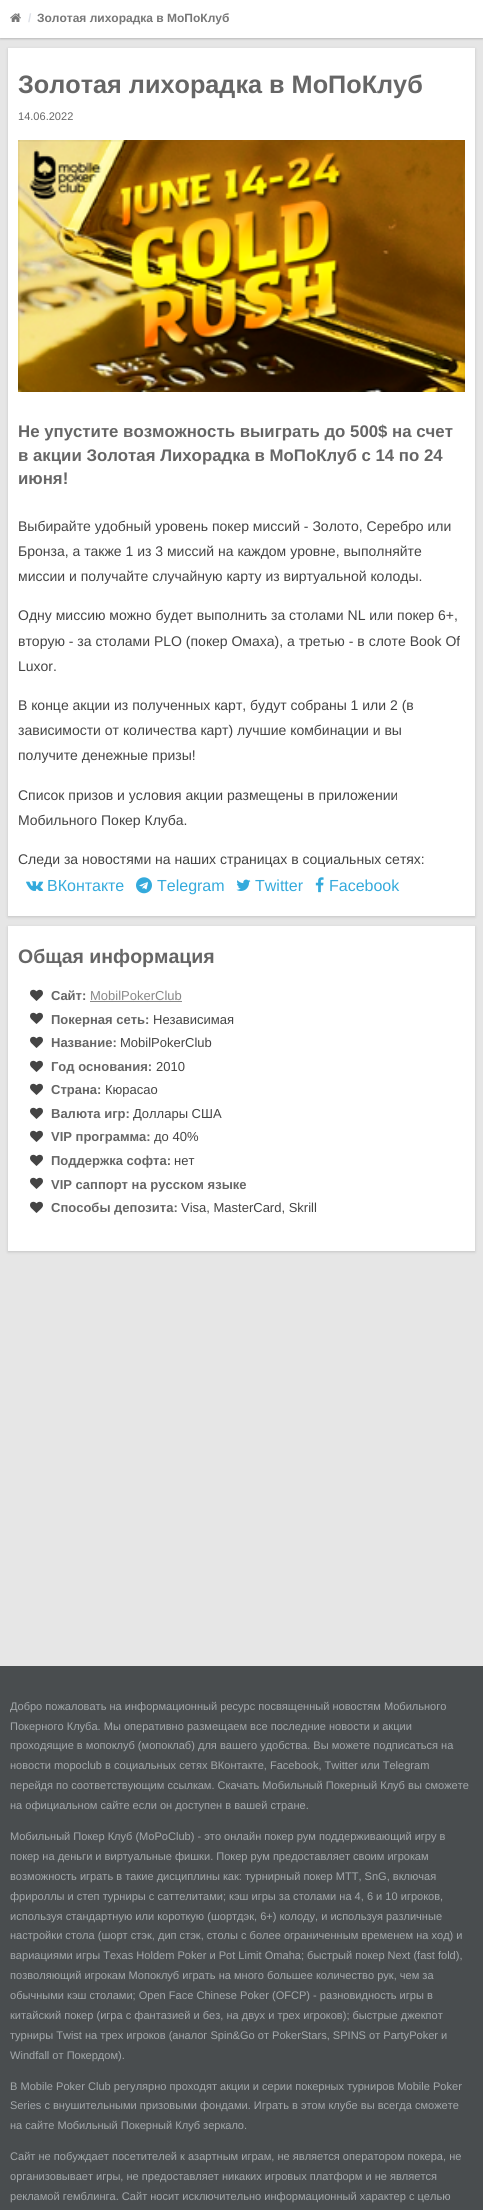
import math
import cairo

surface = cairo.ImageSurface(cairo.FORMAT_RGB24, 483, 2210)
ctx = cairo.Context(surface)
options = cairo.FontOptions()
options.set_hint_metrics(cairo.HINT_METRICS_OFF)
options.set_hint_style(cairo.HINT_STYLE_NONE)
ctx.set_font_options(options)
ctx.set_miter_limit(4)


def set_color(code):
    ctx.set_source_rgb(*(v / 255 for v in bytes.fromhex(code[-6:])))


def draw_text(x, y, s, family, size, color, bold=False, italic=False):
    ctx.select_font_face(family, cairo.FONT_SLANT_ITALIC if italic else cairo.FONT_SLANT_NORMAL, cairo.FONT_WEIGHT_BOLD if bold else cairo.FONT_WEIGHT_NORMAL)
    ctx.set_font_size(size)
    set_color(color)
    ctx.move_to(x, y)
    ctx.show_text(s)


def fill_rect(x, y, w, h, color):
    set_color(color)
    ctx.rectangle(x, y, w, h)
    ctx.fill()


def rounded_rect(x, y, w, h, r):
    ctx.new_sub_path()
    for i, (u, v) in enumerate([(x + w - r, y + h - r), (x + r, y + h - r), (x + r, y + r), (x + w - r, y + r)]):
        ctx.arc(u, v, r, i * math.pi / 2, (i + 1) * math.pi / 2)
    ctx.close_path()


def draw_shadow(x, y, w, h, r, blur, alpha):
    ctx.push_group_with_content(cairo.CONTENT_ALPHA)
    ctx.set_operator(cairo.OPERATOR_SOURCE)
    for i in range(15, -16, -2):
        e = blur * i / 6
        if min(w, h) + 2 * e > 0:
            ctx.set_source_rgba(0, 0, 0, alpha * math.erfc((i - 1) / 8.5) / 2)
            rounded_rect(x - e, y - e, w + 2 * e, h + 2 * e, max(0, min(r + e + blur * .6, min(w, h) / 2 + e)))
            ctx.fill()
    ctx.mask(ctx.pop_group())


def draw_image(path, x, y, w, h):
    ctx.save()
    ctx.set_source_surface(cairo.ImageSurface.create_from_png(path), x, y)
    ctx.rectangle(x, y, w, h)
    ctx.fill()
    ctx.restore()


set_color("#e6e6e6")
ctx.paint()
set_color("#000000")
draw_shadow(0, 1, 483, 38, 0, 1, 0.2)
fill_rect(0, 0, 483, 38, "#ffffff")
draw_image("assets/img1.png", 10, 13, 11, 9)
draw_text(28, 22, "/", "Liberation Sans", 12, "#dde0e7", bold=True)
draw_text(37, 22, "Золотая лихорадка в МоПоКлуб", "Liberation Sans", 12, "#777777", bold=True)
set_color("#000102")
draw_shadow(8, 49, 467, 868, 0, 1.5, 0.15)
fill_rect(8, 48, 467, 868, "#ffffff")
draw_text(18, 93, "Золотая лихорадка в МоПоКлуб", "Liberation Sans", 25.25, "#666666", bold=True)
draw_text(18, 120, "14.06.2022", "Liberation Sans", 11.05, "#666666")
draw_image("assets/img2.png", 18, 140, 447, 252)
draw_text(18, 437, "Не упустите возможность выиграть до 500$ на счет", "Liberation Sans", 16.8, "#666666", bold=True)
draw_text(18, 461, "в акции Золотая Лихорадка в МоПоКлуб с 14 по 24", "Liberation Sans", 16.8, "#666666", bold=True)
draw_text(18, 484, "июня!", "Liberation Sans", 16.8, "#666666", bold=True)
draw_text(18, 531, "Выбирайте удобный уровень покер миссий - Золото, Серебро или", "Liberation Sans", 14, "#444444")
draw_text(18, 556, "Бронза, а также 1 из 3 миссий на каждом уровне, выполняйте", "Liberation Sans", 14, "#444444")
draw_text(18, 581, "миссии и получайте случайную карту из виртуальной колоды.", "Liberation Sans", 14, "#444444")
draw_text(18, 620, "Одну миссию можно будет выполнить за столами NL или покер 6+,", "Liberation Sans", 14, "#444444")
draw_text(18, 646, "вторую - за столами PLO (покер Омаха), а третью - в слоте Book Of", "Liberation Sans", 14, "#444444")
draw_text(18, 671, "Luxor.", "Liberation Sans", 14, "#444444")
draw_text(18, 710, "В конце акции из полученных карт, будут собраны 1 или 2 (в", "Liberation Sans", 14, "#444444")
draw_text(18, 735, "зависимости от количества карт) лучшие комбинации и вы", "Liberation Sans", 14, "#444444")
draw_text(18, 760, "получите денежные призы!", "Liberation Sans", 14, "#444444")
draw_text(18, 800, "Список призов и условия акции размещены в приложении", "Liberation Sans", 14, "#444444")
draw_text(18, 825, "Мобильного Покер Клуба.", "Liberation Sans", 14, "#444444")
draw_text(18, 864, "Следи за новостями на наших страницах в социальных сетях:", "Liberation Sans", 14, "#444444")
draw_image("assets/img3.png", 26, 881, 18, 10)
draw_text(47, 891, "ВКонтакте", "Liberation Sans", 16, "#34aadc")
draw_image("assets/img4.png", 136, 877, 16, 17)
draw_text(157, 891, "Telegram", "Liberation Sans", 16, "#34aadc")
draw_image("assets/img5.png", 236, 879, 15, 12)
draw_text(255, 891, "Twitter", "Liberation Sans", 16, "#34aadc")
draw_image("assets/img6.png", 315, 877, 9, 16)
draw_text(329, 891, "Facebook", "Liberation Sans", 16, "#34aadc")
set_color("#000102")
draw_shadow(8, 927, 467, 325, 0, 1.5, 0.15)
fill_rect(8, 926, 467, 325, "#ffffff")
draw_text(18, 963, "Общая информация", "Liberation Sans", 19.5, "#666666", bold=True)
draw_image("assets/img7.png", 30, 989, 13, 12)
draw_text(51, 1000, "Сайт:", "Liberation Sans", 13, "#666666", bold=True)
draw_text(90, 1000, "MobilPokerClub", "Liberation Sans", 13, "#888888")
fill_rect(90, 1001, 92, 1, "#888888")
draw_image("assets/img7.png", 30, 1012, 13, 12)
draw_text(51, 1024, "Покерная сеть:", "Liberation Sans", 13, "#666666", bold=True)
draw_text(153, 1024, "Независимая", "Liberation Sans", 13, "#444444")
draw_image("assets/img7.png", 30, 1036, 13, 12)
draw_text(51, 1047, "Название:", "Liberation Sans", 13, "#666666", bold=True)
draw_text(120, 1047, "MobilPokerClub", "Liberation Sans", 13, "#444444")
draw_image("assets/img7.png", 30, 1060, 13, 12)
draw_text(51, 1071, "Год основания:", "Liberation Sans", 13, "#666666", bold=True)
draw_text(156, 1071, "2010", "Liberation Sans", 13, "#444444")
draw_image("assets/img7.png", 30, 1083, 13, 12)
draw_text(51, 1094, "Страна:", "Liberation Sans", 13, "#666666", bold=True)
draw_text(105, 1094, "Кюрасао", "Liberation Sans", 13, "#444444")
draw_image("assets/img7.png", 30, 1107, 13, 12)
draw_text(51, 1118, "Валюта игр:", "Liberation Sans", 13, "#666666", bold=True)
draw_text(133, 1118, "Доллары США", "Liberation Sans", 13, "#444444")
draw_image("assets/img7.png", 30, 1130, 13, 12)
draw_text(51, 1141, "VIP программа:", "Liberation Sans", 13, "#666666", bold=True)
draw_text(154, 1141, "до 40%", "Liberation Sans", 13, "#444444")
draw_image("assets/img7.png", 30, 1154, 13, 12)
draw_text(51, 1165, "Поддержка софта:", "Liberation Sans", 13, "#666666", bold=True)
draw_text(174, 1165, "нет", "Liberation Sans", 13, "#444444")
draw_image("assets/img7.png", 30, 1177, 13, 12)
draw_text(51, 1189, "VIP саппорт на русском языке", "Liberation Sans", 13, "#666666", bold=True)
draw_image("assets/img7.png", 30, 1201, 13, 12)
draw_text(51, 1212, "Способы депозита:", "Liberation Sans", 13, "#666666", bold=True)
draw_text(181, 1212, "Visa, MasterCard, Skrill", "Liberation Sans", 13, "#444444")
fill_rect(0, 1666, 483, 544, "#494d4f")
draw_text(10, 1710, "Добро пожаловать на информационный ресурс посвященный новостям Мобильного", "Liberation Sans", 11.05, "#a3a8ab")
draw_text(10, 1730, "Покерного Клуба. Мы оперативно размещаем все последние новости и акции", "Liberation Sans", 11.05, "#a3a8ab")
draw_text(10, 1749, "проходящие в мопоклуб (мопоклаб) для вашего удобства. Вы можете подписаться на", "Liberation Sans", 11.05, "#a3a8ab")
draw_text(10, 1769, "новости mopoclub в социальных сетях ВКонтакте, Facebook, Twitter или Telegram", "Liberation Sans", 11.05, "#a3a8ab")
draw_text(10, 1789, "перейдя по соответствующим ссылкам. Скачать Мобильный Покерный Клуб вы сможете", "Liberation Sans", 11.05, "#a3a8ab")
draw_text(10, 1809, "на официальном сайте если он доступен в вашей стране.", "Liberation Sans", 11.05, "#a3a8ab")
draw_text(10, 1840, "Мобильный Покер Клуб (MoPoClub) - это онлайн покер рум поддерживающий игру в", "Liberation Sans", 11.05, "#a3a8ab")
draw_text(10, 1860, "покер на деньги и виртуальные фишки. Покер рум предоставляет своим игрокам", "Liberation Sans", 11.05, "#a3a8ab")
draw_text(10, 1880, "возможность играть в такие дисциплины как: турнирный покер MTT, SnG, включая", "Liberation Sans", 11.05, "#a3a8ab")
draw_text(10, 1900, "фрироллы и степ турниры с саттелитами; кэш игры за столами на 4, 6 и 10 игроков,", "Liberation Sans", 11.05, "#a3a8ab")
draw_text(10, 1920, "используя стандартную или короткую (шортдэк, 6+) колоду, и используя различные", "Liberation Sans", 11.05, "#a3a8ab")
draw_text(10, 1939, "настройки стола (шорт стэк, дип стэк, столы с более ограниченным временем на ход) и", "Liberation Sans", 11.05, "#a3a8ab")
draw_text(10, 1959, "вариациями игры Texas Holdem Poker и Pot Limit Omaha; быстрый покер Next (fast fold),", "Liberation Sans", 11.05, "#a3a8ab")
draw_text(10, 1979, "позволяющий игрокам Мопоклуб играть на много большее количество рук, чем за", "Liberation Sans", 11.05, "#a3a8ab")
draw_text(10, 1999, "обычными кэш столами; Open Face Chinese Poker (OFCP) - разновидность игры в", "Liberation Sans", 11.05, "#a3a8ab")
draw_text(10, 2019, "китайский покер (игра с фантазией и без, на двух и трех игроков); быстрые джекпот", "Liberation Sans", 11.05, "#a3a8ab")
draw_text(10, 2039, "турниры Twist на трех игроков (аналог Spin&Go от PokerStars, SPINS от PartyPoker и", "Liberation Sans", 11.05, "#a3a8ab")
draw_text(10, 2059, "Windfall от Покердом).", "Liberation Sans", 11.05, "#a3a8ab")
draw_text(10, 2090, "В Mobile Poker Club регулярно проходят акции и серии покерных турниров Mobile Poker", "Liberation Sans", 11.05, "#a3a8ab")
draw_text(10, 2109, "Series с внушительными призовыми фондами. Играть в этом клубе вы всегда сможете", "Liberation Sans", 11.05, "#a3a8ab")
draw_text(10, 2129, "на сайте Мобильный Покерный Клуб зеркало.", "Liberation Sans", 11.05, "#a3a8ab")
draw_text(10, 2160, "Сайт не побуждает посетителей к азартным играм, не является оператором покера, не", "Liberation Sans", 11.05, "#a3a8ab")
draw_text(10, 2180, "организовывает игры, не предоставляет никаких игровых платформ и не является", "Liberation Sans", 11.05, "#a3a8ab")
draw_text(10, 2200, "рекламой гемблинга. Сайт носит исключительно информационный характер с целью", "Liberation Sans", 11.05, "#a3a8ab")
surface.write_to_png("output.png")
